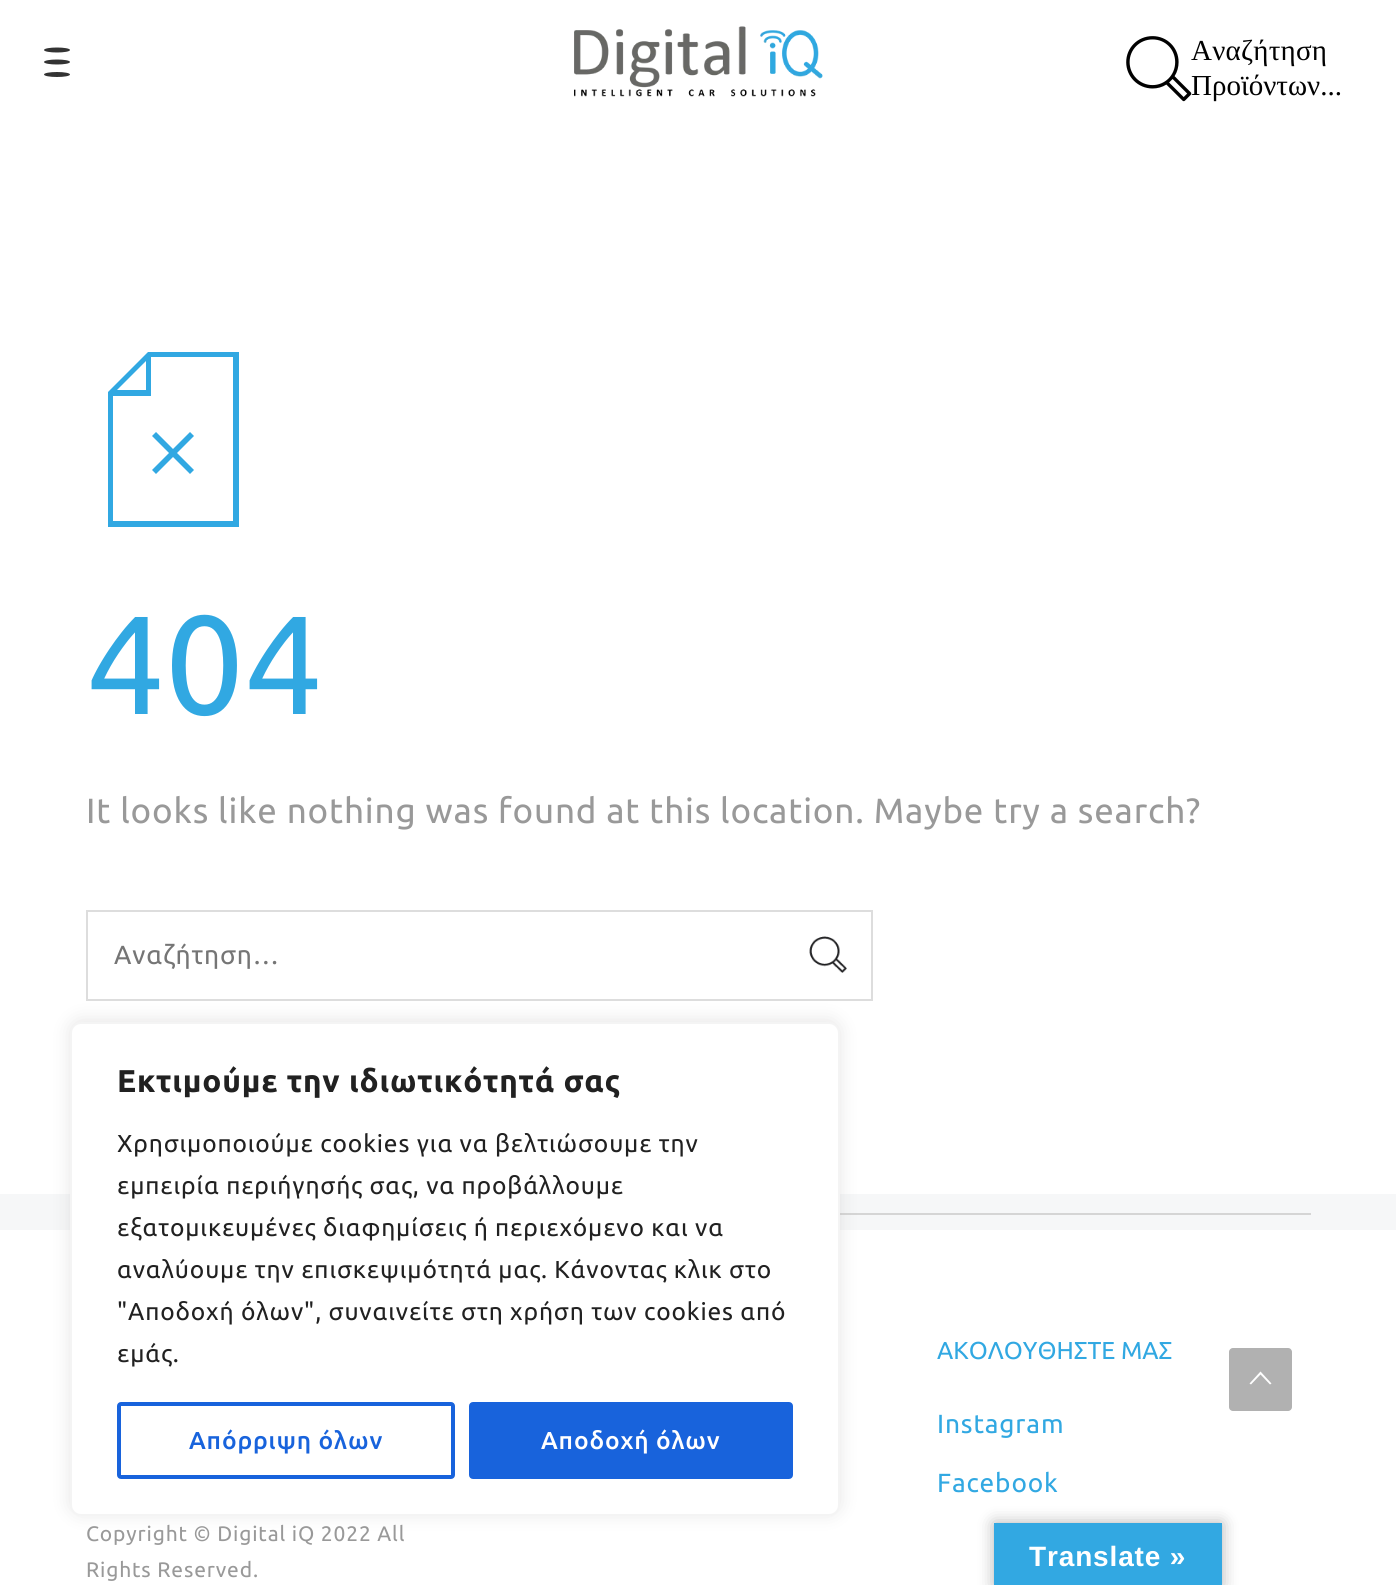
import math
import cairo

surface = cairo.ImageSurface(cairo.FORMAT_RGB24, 1396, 1585)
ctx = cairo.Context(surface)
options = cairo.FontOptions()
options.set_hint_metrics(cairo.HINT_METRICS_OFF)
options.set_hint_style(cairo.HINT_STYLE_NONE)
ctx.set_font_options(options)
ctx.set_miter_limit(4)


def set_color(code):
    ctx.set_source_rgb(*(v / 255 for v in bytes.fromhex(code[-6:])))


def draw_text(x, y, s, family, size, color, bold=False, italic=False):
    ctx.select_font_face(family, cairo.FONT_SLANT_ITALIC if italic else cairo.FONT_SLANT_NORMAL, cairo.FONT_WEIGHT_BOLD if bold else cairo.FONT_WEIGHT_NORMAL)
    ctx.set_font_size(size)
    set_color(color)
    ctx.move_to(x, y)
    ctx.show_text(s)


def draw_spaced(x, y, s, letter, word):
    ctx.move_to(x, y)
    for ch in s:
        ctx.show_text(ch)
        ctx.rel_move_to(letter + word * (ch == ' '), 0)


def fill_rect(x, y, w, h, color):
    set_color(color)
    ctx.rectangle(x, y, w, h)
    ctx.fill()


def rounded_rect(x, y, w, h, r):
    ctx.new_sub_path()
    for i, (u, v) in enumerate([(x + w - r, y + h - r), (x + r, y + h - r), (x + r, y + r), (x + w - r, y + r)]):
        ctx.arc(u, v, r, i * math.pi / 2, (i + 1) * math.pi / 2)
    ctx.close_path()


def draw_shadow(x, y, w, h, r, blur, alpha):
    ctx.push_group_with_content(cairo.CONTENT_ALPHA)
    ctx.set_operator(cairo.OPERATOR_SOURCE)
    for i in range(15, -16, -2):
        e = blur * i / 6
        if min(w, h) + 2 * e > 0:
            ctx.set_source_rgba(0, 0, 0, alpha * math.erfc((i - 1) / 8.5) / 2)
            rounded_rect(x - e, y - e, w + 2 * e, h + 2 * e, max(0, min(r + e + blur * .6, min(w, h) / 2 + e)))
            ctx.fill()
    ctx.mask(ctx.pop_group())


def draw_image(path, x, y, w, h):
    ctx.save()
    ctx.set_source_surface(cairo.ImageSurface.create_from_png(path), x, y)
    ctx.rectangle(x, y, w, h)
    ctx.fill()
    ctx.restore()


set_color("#ffffff")
ctx.paint()
set_color("#333333")
ctx.new_path()
ctx.move_to(57, 59.5)
ctx.curve_to(64, 59.5, 70, 60.5, 70, 62)
ctx.curve_to(70, 63.5, 64, 64.5, 57, 64.5)
ctx.curve_to(50, 64.5, 44, 63.5, 44, 62)
ctx.curve_to(44, 60.5, 50, 59.5, 57, 59.5)
ctx.close_path()
ctx.fill()
ctx.new_path()
ctx.move_to(57, 47.5)
ctx.curve_to(64, 47.5, 70, 48.5, 70, 50)
ctx.curve_to(70, 51.5, 64, 52.5, 57, 52.5)
ctx.curve_to(50, 52.5, 44, 51.5, 44, 50)
ctx.curve_to(44, 48.5, 50, 47.5, 57, 47.5)
ctx.close_path()
ctx.fill()
ctx.new_path()
ctx.move_to(57, 72)
ctx.curve_to(64, 72, 70, 73, 70, 74.5)
ctx.curve_to(70, 76, 64, 77, 57, 77)
ctx.curve_to(50, 77, 44, 76, 44, 74.5)
ctx.curve_to(44, 73, 50, 72, 57, 72)
ctx.close_path()
ctx.fill()
draw_image("assets/img1.png", 574, 26, 249, 71)
draw_image("assets/img2.png", 1126, 36, 66, 66)
ctx.select_font_face("Liberation Serif")
ctx.set_font_size(29)
set_color("#010101")
draw_spaced(1191, 60, "Αναζήτηση", 0.25, 0)
draw_text(1191, 95, "Προϊόντων...", "Liberation Serif", 29, "#010101")
set_color("#31a8e2")
ctx.new_path()
ctx.move_to(239, 352)
ctx.line_to(239, 527)
ctx.line_to(108, 527)
ctx.line_to(108, 392)
ctx.line_to(148, 352)
ctx.close_path()
ctx.move_to(146, 361)
ctx.line_to(117, 390)
ctx.line_to(146, 390)
ctx.close_path()
ctx.move_to(233, 521)
ctx.line_to(233, 357)
ctx.line_to(151, 357)
ctx.line_to(151, 396)
ctx.line_to(113, 396)
ctx.line_to(113, 521)
ctx.close_path()
ctx.move_to(152, 470)
ctx.line_to(169, 453)
ctx.line_to(152, 436)
ctx.line_to(156, 432)
ctx.line_to(173, 449)
ctx.line_to(190, 432)
ctx.line_to(194, 436)
ctx.line_to(177, 453)
ctx.line_to(194, 470)
ctx.line_to(190, 474)
ctx.line_to(173, 457)
ctx.line_to(156, 474)
ctx.close_path()
ctx.fill()
draw_text(86, 714, "404", "Ubuntu", 140, "#31a8e2")
ctx.set_font_size(35)
set_color("#999999")
draw_spaced(86, 823, "It looks like nothing was found at this location. Maybe try a search?", 0.85, 0)
ctx.rectangle(87, 911, 785, 89)
set_color("#dddddd")
ctx.stroke()
ctx.set_font_size(26.25)
set_color("#757575")
draw_spaced(114, 964, "Αναζήτηση…", 0.85, 0)
draw_image("assets/img3.png", 809, 936, 38, 37)
fill_rect(0, 1194, 1396, 36, "#f6f7f8")
fill_rect(840, 1213, 471, 2, "#d5d5d5")
draw_text(937, 1359, "ΑΚΟΛΟΥΘΗΣΤΕ ΜΑΣ", "Ubuntu", 24.5, "#31a8e2")
ctx.set_font_size(26.25)
draw_spaced(937, 1433, "Instagram", 0.85, 0)
draw_spaced(937, 1492, "Facebook", 0.85, 0)
ctx.set_font_size(21)
set_color("#999999")
draw_spaced(86, 1541, "Copyright © Digital iQ 2022 All", 0.85, 0)
draw_spaced(86, 1577, "Rights Reserved.", 0.85, 0)
set_color("#acabab")
draw_shadow(70, 1020, 770, 494, 11, 9, 0.3)
set_color("#ffffff")
rounded_rect(71, 1023, 768, 492, 10)
ctx.fill_preserve()
set_color("#f4f4f4")
ctx.stroke()
ctx.select_font_face("Ubuntu", cairo.FONT_SLANT_NORMAL, cairo.FONT_WEIGHT_BOLD)
ctx.set_font_size(31.5)
set_color("#212121")
draw_spaced(117, 1092, "Εκτιμούμε την ιδιωτικότητά σας", 0.85, 0)
ctx.select_font_face("Ubuntu")
ctx.set_font_size(24.5)
draw_spaced(117, 1152, "Χρησιμοποιούμε cookies για να βελτιώσουμε την", 0.85, 0)
draw_spaced(117, 1194, "εμπειρία περιήγησής σας, να προβάλλουμε", 0.85, 0)
draw_spaced(117, 1236, "εξατομικευμένες διαφημίσεις ή περιεχόμενο και να", 0.85, 0)
draw_spaced(117, 1278, "αναλύουμε την επισκεψιμότητά μας. Κάνοντας κλικ στο", 0.85, 0)
draw_spaced(117, 1320, "\"Αποδοχή όλων\", συναινείτε στη χρήση των cookies από", 0.85, 0)
draw_spaced(117, 1362, "εμάς.", 0.85, 0)
rounded_rect(119, 1404, 334, 73, 2)
set_color("#1863dc")
ctx.set_line_width(4)
ctx.stroke()
ctx.select_font_face("Ubuntu Medium")
draw_spaced(189, 1449, "Απόρριψη όλων", 0.85, 0)
rounded_rect(471, 1404, 320, 73, 2)
ctx.fill_preserve()
ctx.stroke()
set_color("#ffffff")
draw_spaced(541, 1449, "Αποδοχή όλων", 0.85, 0)
set_color("#b1b1b1")
rounded_rect(1229, 1348, 63, 63, 4)
ctx.fill()
set_color("#ffffff")
ctx.new_path()
ctx.move_to(1270, 1384.5)
ctx.line_to(1260.5, 1374.5)
ctx.line_to(1251, 1384.5)
ctx.line_to(1249.5, 1383.5)
ctx.line_to(1260.5, 1371.5)
ctx.line_to(1271.5, 1383.5)
ctx.close_path()
ctx.fill()
set_color("#000000")
draw_shadow(994, 1523, 228, 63, 0, 8, 0.3)
fill_rect(994, 1523, 228, 62, "#32a8e2")
ctx.select_font_face("Liberation Sans", cairo.FONT_SLANT_NORMAL, cairo.FONT_WEIGHT_BOLD)
ctx.set_font_size(28)
set_color("#ffffff")
draw_spaced(1029, 1566, "Translate »", 0.85, 0)
surface.write_to_png("output.png")
